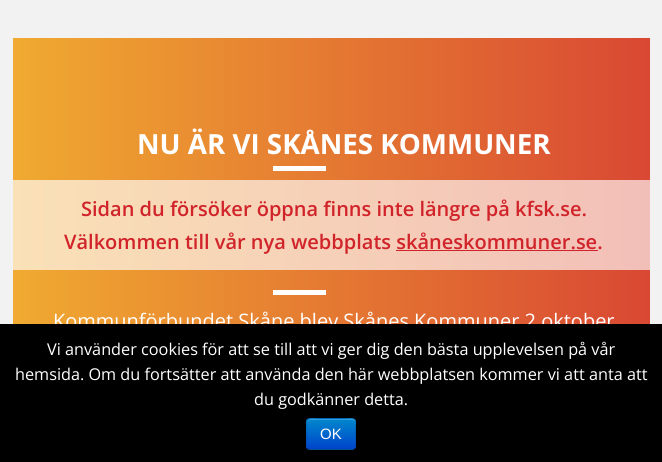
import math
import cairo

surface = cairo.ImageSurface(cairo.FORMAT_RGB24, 662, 462)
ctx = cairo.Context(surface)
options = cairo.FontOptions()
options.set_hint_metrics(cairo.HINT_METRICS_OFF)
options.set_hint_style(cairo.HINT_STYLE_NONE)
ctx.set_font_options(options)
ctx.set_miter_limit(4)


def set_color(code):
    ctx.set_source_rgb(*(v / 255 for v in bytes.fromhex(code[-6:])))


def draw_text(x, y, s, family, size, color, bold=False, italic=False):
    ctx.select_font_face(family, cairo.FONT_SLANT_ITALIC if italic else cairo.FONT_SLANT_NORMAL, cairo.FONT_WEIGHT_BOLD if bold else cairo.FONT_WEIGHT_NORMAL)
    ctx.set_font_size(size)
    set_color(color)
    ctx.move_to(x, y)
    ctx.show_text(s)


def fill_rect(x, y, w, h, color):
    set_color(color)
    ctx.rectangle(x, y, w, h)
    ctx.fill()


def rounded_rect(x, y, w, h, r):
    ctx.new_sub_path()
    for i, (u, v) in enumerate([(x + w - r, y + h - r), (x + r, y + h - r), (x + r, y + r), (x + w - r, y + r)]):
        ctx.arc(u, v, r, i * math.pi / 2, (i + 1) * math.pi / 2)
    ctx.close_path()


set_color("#f2f2f2")
ctx.paint()
gradient = cairo.LinearGradient(12, 397, 650, 397)
gradient.add_color_stop_rgba(0, 0.941, 0.667, 0.192, 1)
gradient.add_color_stop_rgba(1, 0.851, 0.282, 0.2, 1)
ctx.set_source(gradient)
ctx.rectangle(13, 38, 637, 286)
ctx.fill()
gradient = cairo.LinearGradient(12, 397, 650, 397)
gradient.add_color_stop_rgba(0, 0.98, 0.882, 0.718, 1)
gradient.add_color_stop_rgba(1, 0.949, 0.749, 0.722, 1)
ctx.set_source(gradient)
ctx.rectangle(13, 180, 637, 90)
ctx.fill()
draw_text(137, 154, "NU ÄR VI SKÅNES KOMMUNER", "Open Sans", 27.75, "#ffffff", bold=True)
fill_rect(273, 166, 53, 5, "#ffffff")
draw_text(81, 216, "Sidan du försöker öppna finns inte längre på kfsk.se.", "Open Sans SemiBold", 20, "#d1232a")
draw_text(64, 249, "Välkommen till vår nya webbplats skåneskommuner.se.", "Open Sans SemiBold", 20, "#d1232a")
fill_rect(396, 250, 202, 1, "#d1232a")
fill_rect(273, 290, 53, 5, "#ffffff")
draw_text(53, 328, "Kommunförbundet Skåne blev Skånes Kommuner 2 oktober", "Open Sans", 20, "#ffffff")
fill_rect(0, 324, 662, 138, "#000000")
draw_text(47, 355, "Vi använder cookies för att se till att vi ger dig den bästa upplevelsen på vår", "Open Sans", 16.25, "#ffffff")
draw_text(15, 380, "hemsida. Om du fortsätter att använda den här webbplatsen kommer vi att anta att", "Open Sans", 16.25, "#ffffff")
draw_text(254, 405, "du godkänner detta.", "Open Sans", 16.25, "#ffffff")
set_color("#006dcc")
rounded_rect(306, 418, 50, 32, 4)
ctx.fill()
ctx.save()
rounded_rect(306, 418, 50, 32, 4)
ctx.clip()
gradient = cairo.LinearGradient(331, 419, 331, 449)
gradient.add_color_stop_rgba(0, 0, 0.533, 0.8, 1)
gradient.add_color_stop_rgba(1, 0, 0.267, 0.8, 1)
ctx.set_source(gradient)
ctx.rectangle(306, 419, 50, 30)
ctx.fill()
ctx.restore()
set_color("#339fd6")
ctx.new_path()
ctx.move_to(310, 420)
ctx.line_to(352, 420)
ctx.curve_to(354, 420, 355, 421, 355, 422)
ctx.curve_to(355, 417, 348, 419, 346, 419)
ctx.line_to(318, 419)
ctx.curve_to(315, 419, 308, 417, 308, 422)
ctx.curve_to(308, 421, 309, 420, 310, 420)
ctx.close_path()
ctx.fill()
ctx.new_path()
ctx.move_to(354.5, 448.5)
ctx.line_to(353, 449.5)
ctx.line_to(309.5, 449.5)
ctx.line_to(308, 448.5)
ctx.set_source_rgba(0, 0, 0, 0.25)
ctx.set_line_width(1.2)
ctx.stroke()
ctx.new_path()
ctx.move_to(308, 448.5)
ctx.curve_to(305.5, 446.5, 307, 436.5, 307, 434)
ctx.curve_to(307, 418.5, 303.5, 418, 317, 418)
ctx.line_to(345.5, 418)
ctx.curve_to(359, 418, 355.5, 418.5, 355.5, 434)
ctx.curve_to(355.5, 436.5, 357, 446.5, 354.5, 448.5)
ctx.set_source_rgba(0, 0, 0, 0.1)
ctx.stroke()
draw_text(320, 439, "OK", "Liberation Sans", 15, "#ffffff")
surface.write_to_png("output.png")
